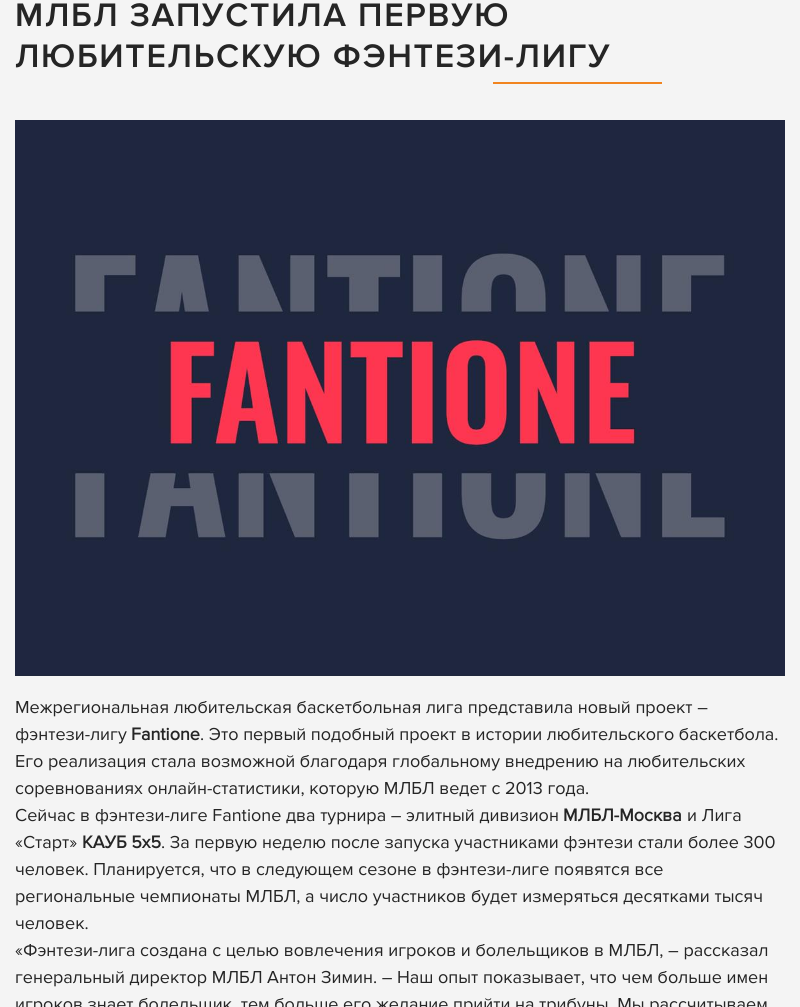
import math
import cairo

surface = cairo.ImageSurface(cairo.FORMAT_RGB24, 800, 1007)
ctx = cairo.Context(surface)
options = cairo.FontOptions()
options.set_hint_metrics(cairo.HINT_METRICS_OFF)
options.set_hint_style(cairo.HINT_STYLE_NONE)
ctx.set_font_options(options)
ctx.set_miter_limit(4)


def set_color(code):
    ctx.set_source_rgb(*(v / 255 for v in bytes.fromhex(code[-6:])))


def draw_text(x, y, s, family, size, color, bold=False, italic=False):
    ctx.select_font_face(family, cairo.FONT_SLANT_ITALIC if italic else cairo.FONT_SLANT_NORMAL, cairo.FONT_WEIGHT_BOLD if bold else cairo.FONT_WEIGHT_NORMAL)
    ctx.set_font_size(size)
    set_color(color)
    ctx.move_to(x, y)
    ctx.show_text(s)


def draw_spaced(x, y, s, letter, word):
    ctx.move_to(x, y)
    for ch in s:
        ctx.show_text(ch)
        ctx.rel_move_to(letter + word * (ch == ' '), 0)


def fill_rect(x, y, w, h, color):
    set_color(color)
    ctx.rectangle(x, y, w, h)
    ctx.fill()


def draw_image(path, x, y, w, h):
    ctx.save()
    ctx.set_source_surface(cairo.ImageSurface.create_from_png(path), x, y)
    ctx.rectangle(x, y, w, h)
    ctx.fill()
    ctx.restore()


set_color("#f4f4f4")
ctx.paint()
ctx.select_font_face("Proxima Nova SemiBold")
ctx.set_font_size(33.75)
set_color("#252525")
draw_spaced(15, 26, "МЛБЛ ЗАПУСТИЛА ПЕРВУЮ", 1.7, 0)
draw_spaced(15, 67, "ЛЮБИТЕЛЬСКУЮ ФЭНТЕЗИ-ЛИГУ", 1.7, 0)
fill_rect(493, 82, 169, 2, "#f1841f")
draw_image("assets/img1.png", 15, 120, 770, 556)
draw_text(15, 713, "Межрегиональная любительская баскетбольная лига представила новый проект –", "Proxima Nova", 18, "#252525")
draw_text(15, 740, "фэнтези-лигу", "Proxima Nova", 18, "#252525")
draw_text(131, 740, "Fantione", "Proxima Nova", 18, "#252525", bold=True)
draw_text(200, 740, ". Это первый подобный проект в истории любительского баскетбола.", "Proxima Nova", 18, "#252525")
draw_text(15, 767, "Его реализация стала возможной благодаря глобальному внедрению на любительских", "Proxima Nova", 18, "#252525")
draw_text(15, 794, "соревнованиях онлайн-статистики, которую МЛБЛ ведет с 2013 года.", "Proxima Nova", 18, "#252525")
draw_text(15, 821, "Сейчас в фэнтези-лиге Fantione два турнира – элитный дивизион", "Proxima Nova", 18, "#252525")
draw_text(563, 821, "МЛБЛ-Москва", "Proxima Nova", 18, "#252525", bold=True)
draw_text(687, 821, "и Лига", "Proxima Nova", 18, "#252525")
draw_text(15, 848, "«Старт»", "Proxima Nova", 18, "#252525")
draw_text(82, 848, "КАУБ 5х5", "Proxima Nova", 18, "#252525", bold=True)
draw_text(161, 848, ". За первую неделю после запуска участниками фэнтези стали более 300", "Proxima Nova", 18, "#252525")
draw_text(15, 875, "человек. Планируется, что в следующем сезоне в фэнтези-лиге появятся все", "Proxima Nova", 18, "#252525")
draw_text(15, 902, "региональные чемпионаты МЛБЛ, а число участников будет измеряться десятками тысяч", "Proxima Nova", 18, "#252525")
draw_text(15, 929, "человек.", "Proxima Nova", 18, "#252525")
draw_text(15, 956, "«Фэнтези-лига создана с целью вовлечения игроков и болельщиков в МЛБЛ, – рассказал", "Proxima Nova", 18, "#252525")
draw_text(15, 983, "генеральный директор МЛБЛ Антон Зимин. – Наш опыт показывает, что чем больше имен", "Proxima Nova", 18, "#252525")
draw_text(15, 1010, "игроков знает болельщик, тем больше его желание прийти на трибуны. Мы рассчитываем", "Proxima Nova", 18, "#252525")
surface.write_to_png("output.png")
